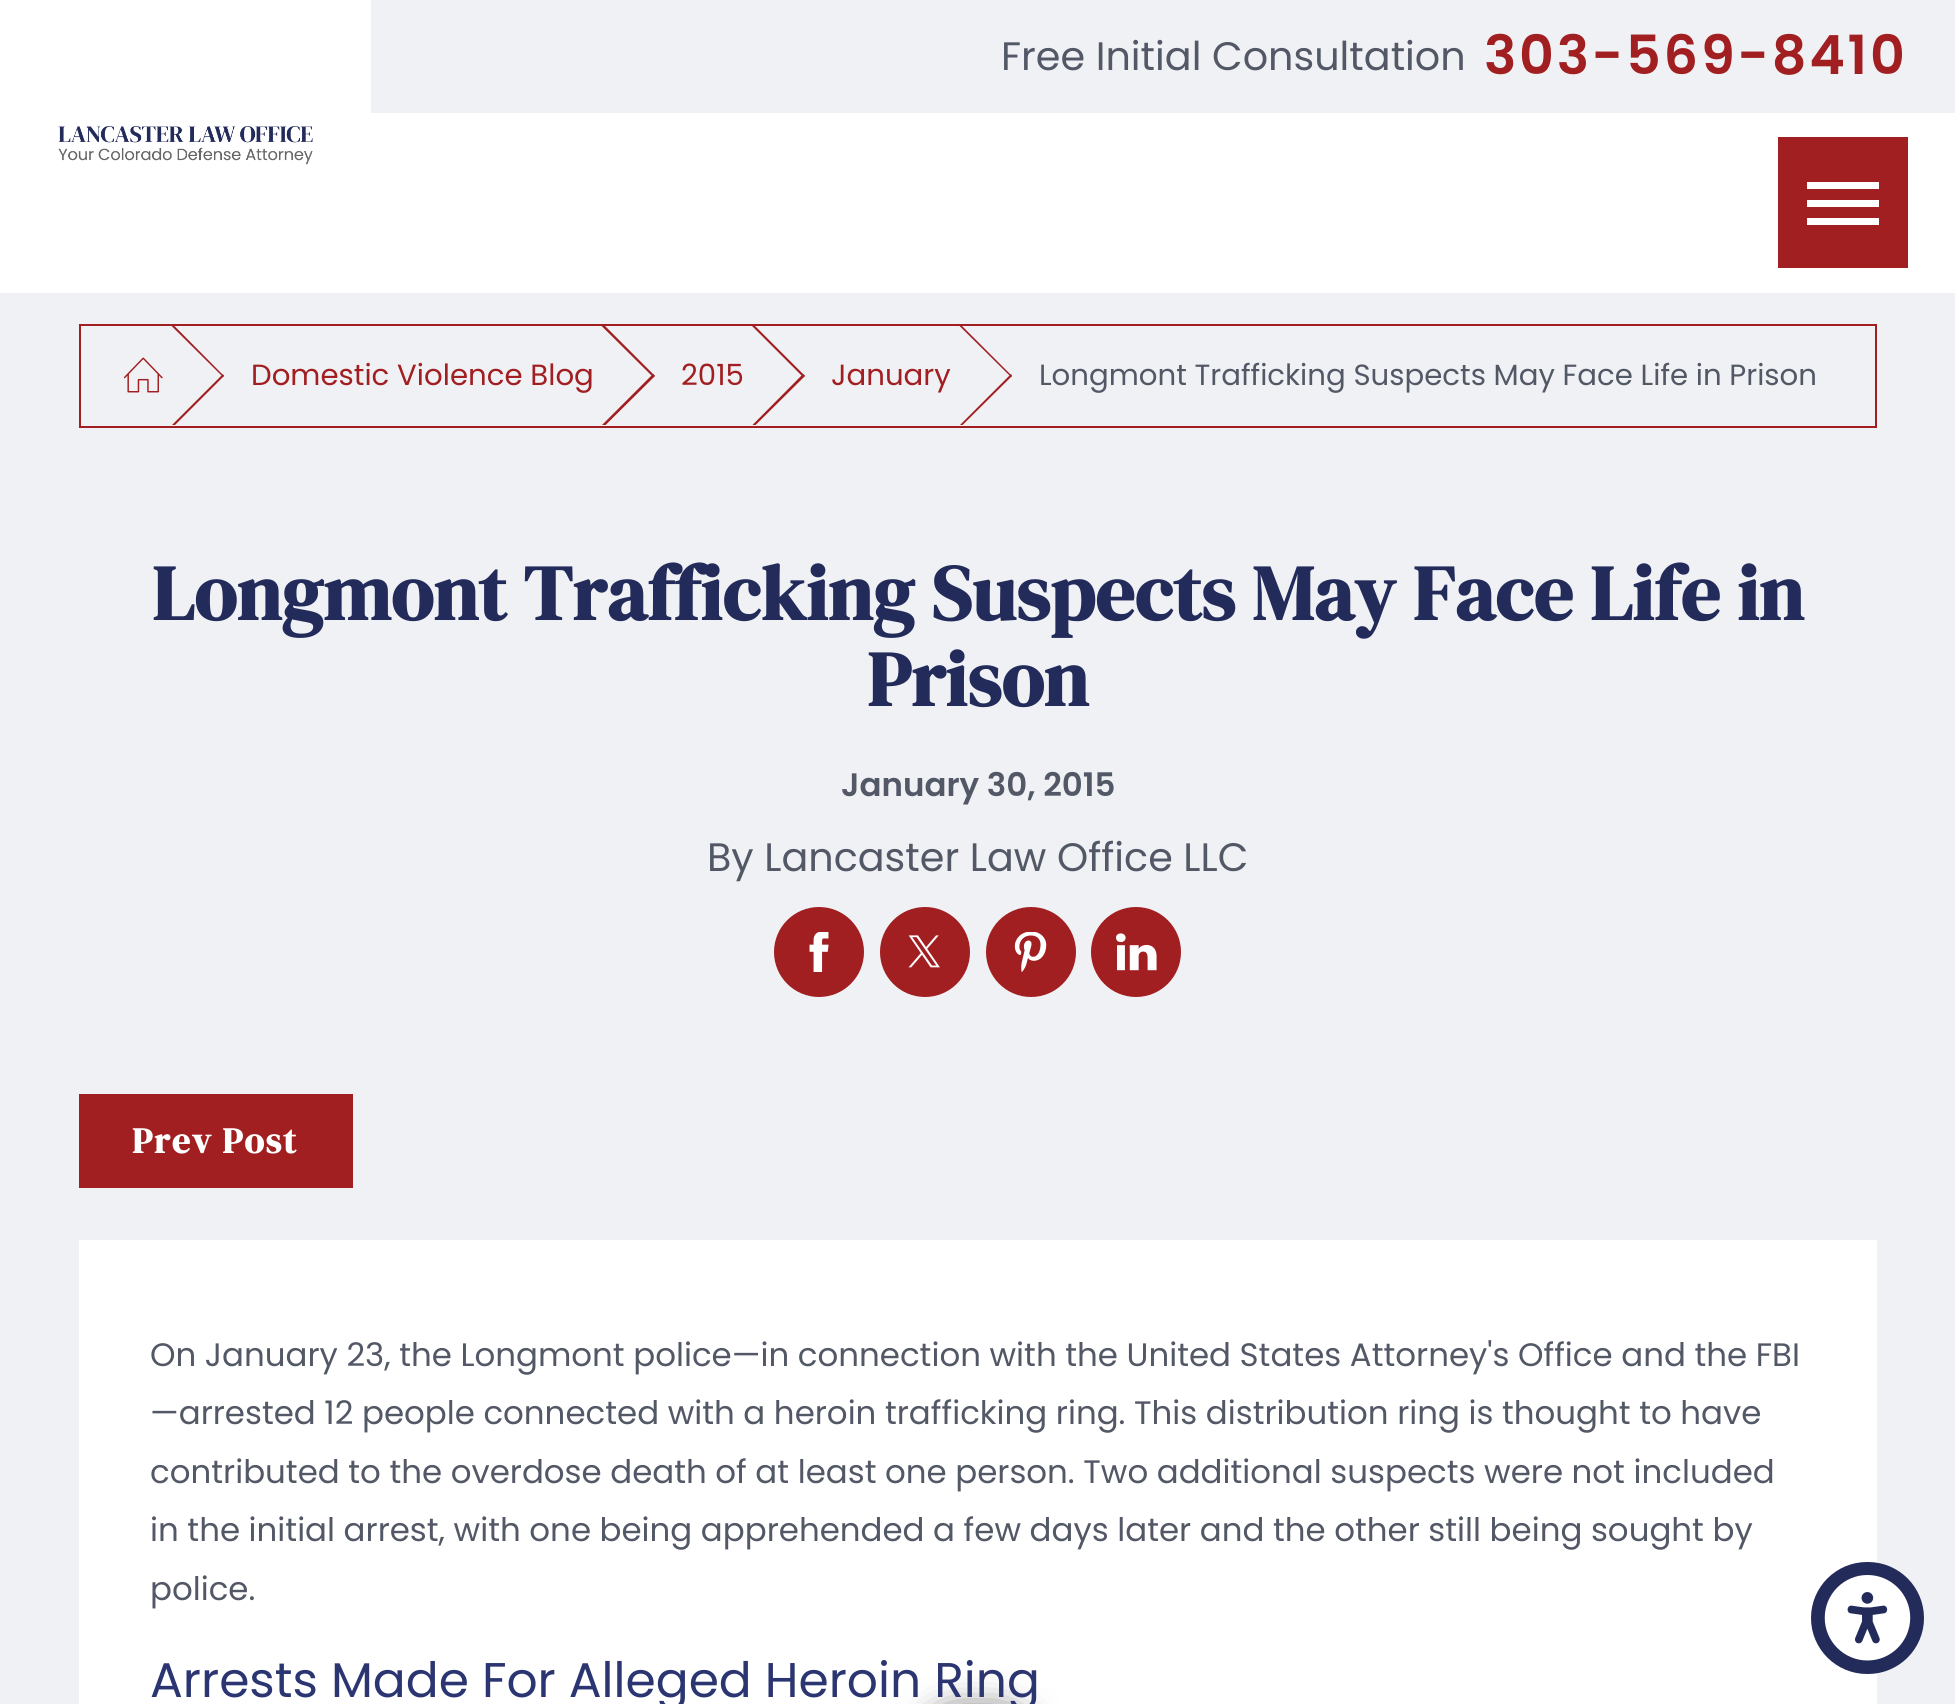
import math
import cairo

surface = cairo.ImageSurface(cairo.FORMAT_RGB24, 1955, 1704)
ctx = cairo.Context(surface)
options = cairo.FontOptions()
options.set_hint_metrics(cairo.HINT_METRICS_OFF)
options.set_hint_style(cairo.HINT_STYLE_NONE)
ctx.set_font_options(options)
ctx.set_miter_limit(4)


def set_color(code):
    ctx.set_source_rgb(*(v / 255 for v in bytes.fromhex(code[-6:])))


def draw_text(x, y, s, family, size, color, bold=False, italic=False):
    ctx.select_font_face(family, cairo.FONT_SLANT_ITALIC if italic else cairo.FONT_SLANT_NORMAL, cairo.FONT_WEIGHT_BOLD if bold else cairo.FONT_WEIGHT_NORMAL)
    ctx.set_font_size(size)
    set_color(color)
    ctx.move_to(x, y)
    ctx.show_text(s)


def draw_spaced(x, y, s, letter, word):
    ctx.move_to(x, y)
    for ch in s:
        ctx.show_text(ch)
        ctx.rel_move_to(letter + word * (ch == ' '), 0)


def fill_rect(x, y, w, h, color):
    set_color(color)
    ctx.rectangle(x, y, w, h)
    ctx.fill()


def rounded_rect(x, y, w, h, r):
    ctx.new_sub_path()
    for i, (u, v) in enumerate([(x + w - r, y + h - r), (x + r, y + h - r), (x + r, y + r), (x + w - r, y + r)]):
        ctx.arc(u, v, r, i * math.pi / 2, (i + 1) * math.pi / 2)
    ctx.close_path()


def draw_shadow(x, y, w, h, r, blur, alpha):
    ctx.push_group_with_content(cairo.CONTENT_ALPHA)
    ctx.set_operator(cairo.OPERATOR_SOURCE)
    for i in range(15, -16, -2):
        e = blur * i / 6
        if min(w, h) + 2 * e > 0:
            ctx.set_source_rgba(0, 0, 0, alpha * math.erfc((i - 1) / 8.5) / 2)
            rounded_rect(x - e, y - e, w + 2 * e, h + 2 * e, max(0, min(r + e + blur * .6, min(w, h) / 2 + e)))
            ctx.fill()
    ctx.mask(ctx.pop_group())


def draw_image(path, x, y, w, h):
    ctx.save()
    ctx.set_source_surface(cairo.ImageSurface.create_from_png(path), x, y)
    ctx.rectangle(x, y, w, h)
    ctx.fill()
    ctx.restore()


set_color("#ffffff")
ctx.paint()
fill_rect(371, 0, 1584, 113, "#f0f1f4")
draw_text(1001, 70, "Free Initial Consultation", "Poppins", 39.7, "#535866")
ctx.select_font_face("Poppins SemiBold")
ctx.set_font_size(54)
set_color("#a11e21")
draw_spaced(1484, 74, "303-569-8410", 2.75, 0)
fill_rect(1778, 137, 130, 131, "#a11e21")
fill_rect(1807, 182, 72, 7, "#ffffff")
fill_rect(1807, 200, 72, 7, "#ffffff")
fill_rect(1807, 218, 72, 7, "#ffffff")
draw_image("assets/img1.png", 58, 126, 255, 39)
fill_rect(0, 293, 1955, 1411, "#f0f1f4")
fill_rect(79, 1240, 1798, 464, "#ffffff")
set_color("#000000")
draw_shadow(914, 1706, 128, 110, 64, 16, 0.5)
set_color("#232b5b")
rounded_rect(1811, 1562, 113, 112, 56)
ctx.fill()
draw_image("assets/img2.png", 1824, 1575, 87, 86)
ctx.rectangle(80, 325, 1796, 102)
set_color("#a11e21")
ctx.stroke()
draw_image("assets/img3.png", 124, 357, 39, 36)
ctx.save()
ctx.rectangle(81, 326, 1793, 99)
ctx.clip()
ctx.new_path()
ctx.move_to(110, 261)
ctx.line_to(224, 376)
ctx.line_to(223, 377)
ctx.line_to(108, 263)
ctx.close_path()
ctx.fill()
ctx.new_path()
ctx.move_to(223, 374)
ctx.line_to(224, 376)
ctx.line_to(110, 490)
ctx.line_to(108, 489)
ctx.close_path()
ctx.fill()
ctx.restore()
draw_text(251, 385, "Domestic Violence Blog", "Poppins", 29.2, "#a11e21")
ctx.save()
ctx.rectangle(81, 326, 1793, 99)
ctx.clip()
ctx.new_path()
ctx.move_to(540, 261)
ctx.line_to(655, 376)
ctx.line_to(653, 377)
ctx.line_to(538, 263)
ctx.close_path()
ctx.fill()
ctx.new_path()
ctx.move_to(653, 374)
ctx.line_to(655, 376)
ctx.line_to(540, 490)
ctx.line_to(538, 489)
ctx.close_path()
ctx.fill()
ctx.restore()
draw_text(681, 385, "2015", "Poppins", 29.2, "#a11e21")
ctx.save()
ctx.rectangle(81, 326, 1793, 99)
ctx.clip()
ctx.new_path()
ctx.move_to(690, 261)
ctx.line_to(805, 376)
ctx.line_to(803, 377)
ctx.line_to(689, 263)
ctx.close_path()
ctx.fill()
ctx.new_path()
ctx.move_to(803, 374)
ctx.line_to(805, 376)
ctx.line_to(690, 490)
ctx.line_to(689, 489)
ctx.close_path()
ctx.fill()
ctx.restore()
draw_text(831, 385, "January", "Poppins", 29.2, "#a11e21")
ctx.save()
ctx.rectangle(81, 326, 1793, 99)
ctx.clip()
ctx.new_path()
ctx.move_to(897, 261)
ctx.line_to(1012, 376)
ctx.line_to(1011, 377)
ctx.line_to(896, 263)
ctx.close_path()
ctx.fill()
ctx.new_path()
ctx.move_to(1011, 374)
ctx.line_to(1012, 376)
ctx.line_to(897, 490)
ctx.line_to(896, 489)
ctx.close_path()
ctx.fill()
ctx.restore()
set_color("#535866")
draw_spaced(1039, 385, "Longmont Trafficking Suspects May Face Life in Prison", 0, -0.1)
draw_text(152, 620, "Longmont Trafficking Suspects May Face Life in", "DM Serif Display", 77.9, "#232b5b", bold=True)
draw_text(867, 706, "Prison", "DM Serif Display", 77.9, "#232b5b", bold=True)
draw_text(841, 796, "January 30, 2015", "Poppins SemiBold", 32.45, "#535866")
draw_text(707, 871, "By Lancaster Law Office LLC", "Poppins", 39.7, "#535866")
set_color("#a11e21")
ctx.new_path()
ctx.arc(819, 952, 45, 0, 2 * math.pi)
ctx.fill()
draw_image("assets/img4.png", 809, 932, 20, 40)
ctx.arc(925, 952, 45, 0, 2 * math.pi)
ctx.fill()
draw_image("assets/img5.png", 908, 935, 32, 33)
ctx.arc(1031, 952, 45, 0, 2 * math.pi)
ctx.fill()
draw_image("assets/img6.png", 1014, 932, 33, 40)
ctx.arc(1136, 952, 45, 0, 2 * math.pi)
ctx.fill()
draw_image("assets/img7.png", 1116, 933, 41, 38)
fill_rect(79, 1094, 274, 94, "#a11e21")
ctx.select_font_face("DM Serif Display", cairo.FONT_SLANT_NORMAL, cairo.FONT_WEIGHT_BOLD)
ctx.set_font_size(36)
set_color("#ffffff")
draw_spaced(132, 1153, "Prev Post", 1.75, 0)
ctx.select_font_face("Poppins")
ctx.set_font_size(32.45)
set_color("#535866")
draw_spaced(150, 1366, "On January 23, the Longmont police—in connection with the United States Attorney's Office and the FBI", 0, -0.1)
draw_spaced(150, 1424, "—arrested 12 people connected with a heroin trafficking ring. This distribution ring is thought to have", 0, -0.1)
draw_spaced(150, 1483, "contributed to the overdose death of at least one person. Two additional suspects were not included", 0, -0.1)
draw_spaced(150, 1541, "in the initial arrest, with one being apprehended a few days later and the other still being sought by", 0, -0.1)
draw_text(150, 1600, "police.", "Poppins", 32.45, "#535866")
draw_text(150, 1697, "Arrests Made For Alleged Heroin Ring", "Poppins", 48.7, "#2b3571")
surface.write_to_png("output.png")
